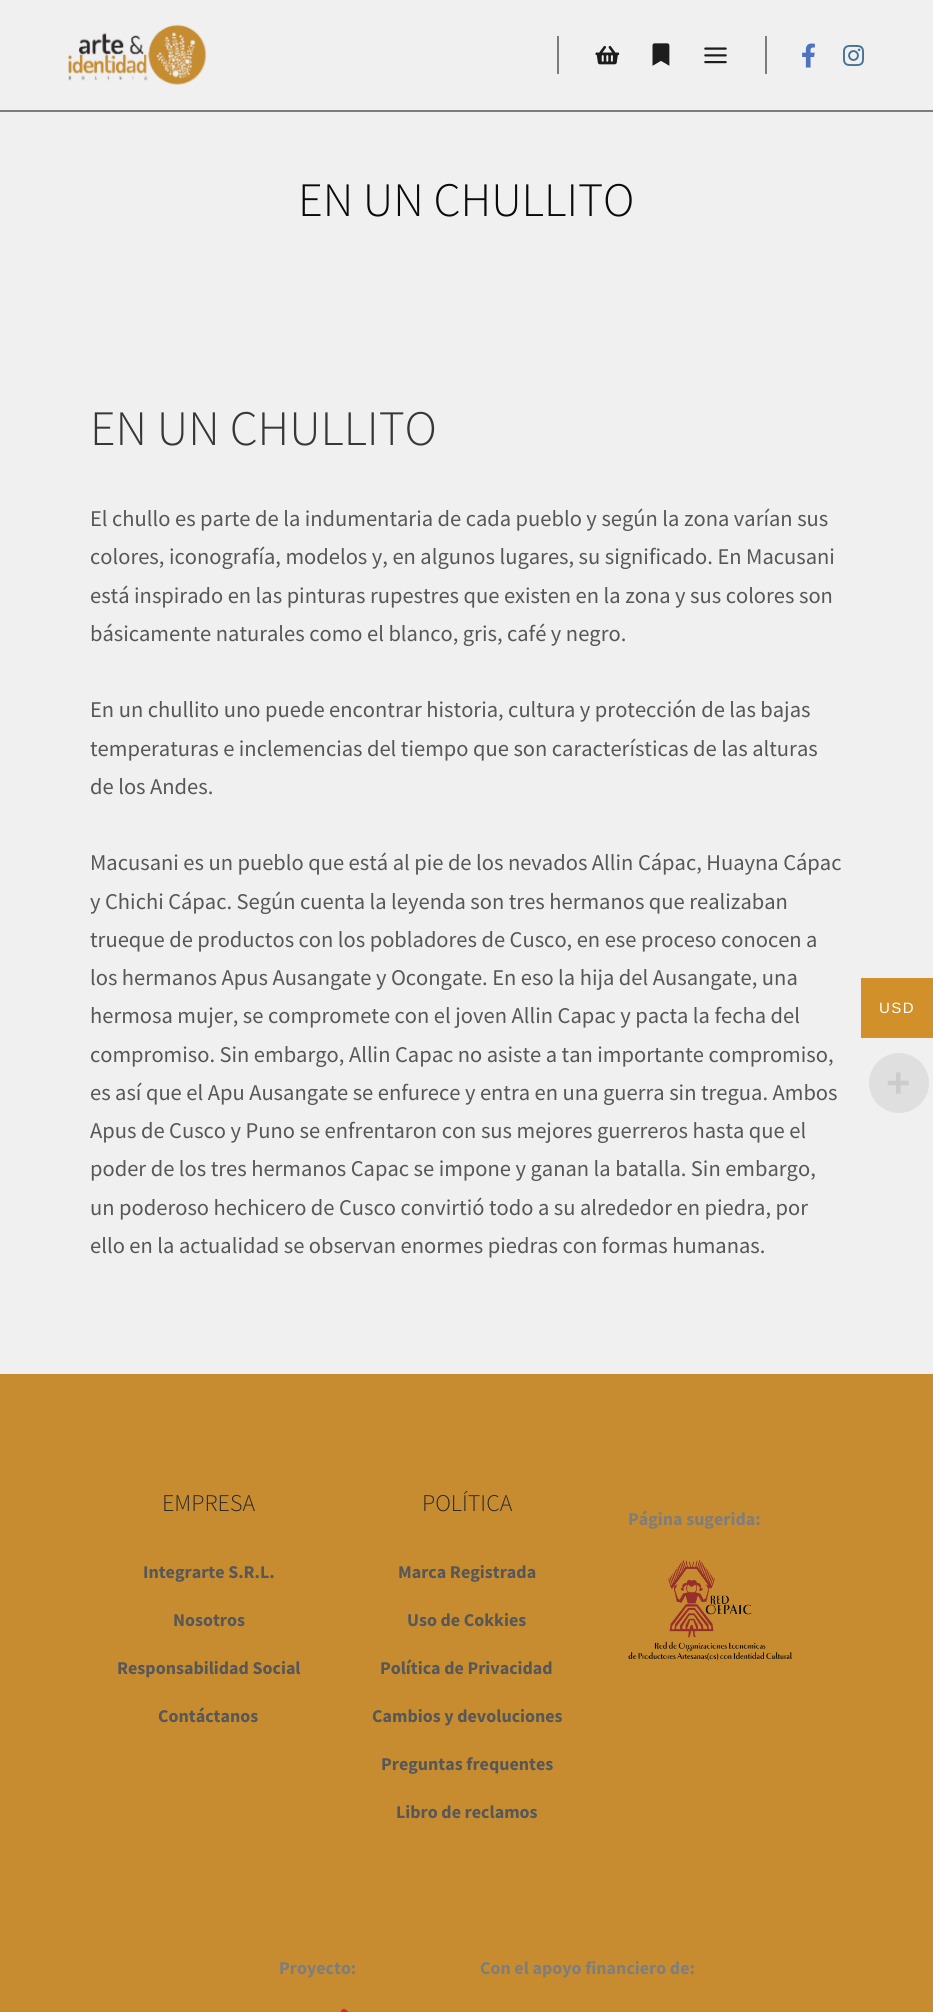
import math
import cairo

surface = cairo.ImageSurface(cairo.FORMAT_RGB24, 933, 2012)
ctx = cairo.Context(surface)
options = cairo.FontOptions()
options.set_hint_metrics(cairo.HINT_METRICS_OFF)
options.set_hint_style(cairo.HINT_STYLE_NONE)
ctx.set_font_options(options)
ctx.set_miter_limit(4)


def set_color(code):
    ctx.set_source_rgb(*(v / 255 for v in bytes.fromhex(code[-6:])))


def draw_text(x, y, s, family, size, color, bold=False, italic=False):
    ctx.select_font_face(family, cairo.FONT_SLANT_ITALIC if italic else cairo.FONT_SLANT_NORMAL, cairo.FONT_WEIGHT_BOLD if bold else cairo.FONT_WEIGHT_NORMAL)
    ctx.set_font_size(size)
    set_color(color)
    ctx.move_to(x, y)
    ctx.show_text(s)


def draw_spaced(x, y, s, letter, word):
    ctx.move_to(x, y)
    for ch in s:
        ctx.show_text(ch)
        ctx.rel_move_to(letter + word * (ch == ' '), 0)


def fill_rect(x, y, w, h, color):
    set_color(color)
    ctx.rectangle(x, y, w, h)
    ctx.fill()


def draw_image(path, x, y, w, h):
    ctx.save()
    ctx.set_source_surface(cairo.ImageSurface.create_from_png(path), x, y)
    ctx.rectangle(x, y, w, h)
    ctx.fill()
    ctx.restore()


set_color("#f0f0f0")
ctx.paint()
fill_rect(0, 110, 933, 2, "#7d7d7d")
draw_image("assets/img1.png", 68, 24, 139, 61)
fill_rect(557, 36, 2, 38, "#7d7d7d")
draw_image("assets/img2.png", 595, 45, 25, 20)
draw_image("assets/img3.png", 652, 43, 18, 23)
draw_image("assets/img4.png", 704, 47, 23, 17)
fill_rect(765, 36, 2, 38, "#7d7d7d")
draw_image("assets/img5.png", 802, 43, 13, 25)
draw_image("assets/img6.png", 843, 44, 22, 22)
draw_text(298, 216, "EN UN CHULLITO", "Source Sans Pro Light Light", 48, "#0a0a0a")
draw_text(90, 445, "EN UN CHULLITO", "Source Sans Pro Light Light", 49.5, "#373737")
draw_text(90, 526, "El chullo es parte de la indumentaria de cada pueblo y según la zona varían sus", "Source Sans Pro", 22.5, "#575757")
draw_text(90, 564, "colores, iconografía, modelos y, en algunos lugares, su significado. En Macusani", "Source Sans Pro", 22.5, "#575757")
draw_text(90, 603, "está inspirado en las pinturas rupestres que existen en la zona y sus colores son", "Source Sans Pro", 22.5, "#575757")
draw_text(90, 641, "básicamente naturales como el blanco, gris, café y negro.", "Source Sans Pro", 22.5, "#575757")
draw_text(90, 717, "En un chullito uno puede encontrar historia, cultura y protección de las bajas", "Source Sans Pro", 22.5, "#575757")
draw_text(90, 756, "temperaturas e inclemencias del tiempo que son características de las alturas", "Source Sans Pro", 22.5, "#575757")
draw_text(90, 794, "de los Andes.", "Source Sans Pro", 22.5, "#575757")
draw_text(90, 870, "Macusani es un pueblo que está al pie de los nevados Allin Cápac, Huayna Cápac", "Source Sans Pro", 22.5, "#575757")
draw_text(90, 909, "y Chichi Cápac. Según cuenta la leyenda son tres hermanos que realizaban", "Source Sans Pro", 22.5, "#575757")
draw_text(90, 947, "trueque de productos con los pobladores de Cusco, en ese proceso conocen a", "Source Sans Pro", 22.5, "#575757")
draw_text(90, 985, "los hermanos Apus Ausangate y Ocongate. En eso la hija del Ausangate, una", "Source Sans Pro", 22.5, "#575757")
draw_text(90, 1023, "hermosa mujer, se compromete con el joven Allin Capac y pacta la fecha del", "Source Sans Pro", 22.5, "#575757")
draw_text(90, 1062, "compromiso. Sin embargo, Allin Capac no asiste a tan importante compromiso,", "Source Sans Pro", 22.5, "#575757")
draw_text(90, 1100, "es así que el Apu Ausangate se enfurece y entra en una guerra sin tregua. Ambos", "Source Sans Pro", 22.5, "#575757")
draw_text(90, 1138, "Apus de Cusco y Puno se enfrentaron con sus mejores guerreros hasta que el", "Source Sans Pro", 22.5, "#575757")
draw_text(90, 1176, "poder de los tres hermanos Capac se impone y ganan la batalla. Sin embargo,", "Source Sans Pro", 22.5, "#575757")
draw_text(90, 1215, "un poderoso hechicero de Cusco convirtió todo a su alrededor en piedra, por", "Source Sans Pro", 22.5, "#575757")
draw_text(90, 1253, "ello en la actualidad se observan enormes piedras con formas humanas.", "Source Sans Pro", 22.5, "#575757")
fill_rect(0, 1374, 933, 638, "#c78c30")
draw_text(162, 1511, "EMPRESA", "Source Sans Pro Light Light", 24, "#292929")
draw_text(143, 1578, "Integrarte S.R.L.", "Source Sans Pro", 18, "#575757", bold=True)
draw_text(173, 1626, "Nosotros", "Source Sans Pro", 18, "#575757", bold=True)
draw_text(117, 1674, "Responsabilidad Social", "Source Sans Pro", 18, "#575757", bold=True)
draw_text(158, 1722, "Contáctanos", "Source Sans Pro", 18, "#575757", bold=True)
draw_text(422, 1511, "POLÍTICA", "Source Sans Pro Light Light", 24, "#292929")
draw_text(398, 1578, "Marca Registrada", "Source Sans Pro", 18, "#575757", bold=True)
draw_text(407, 1626, "Uso de Cokkies", "Source Sans Pro", 18, "#575757", bold=True)
draw_text(380, 1674, "Política de Privacidad", "Source Sans Pro", 18, "#575757", bold=True)
draw_text(372, 1722, "Cambios y devoluciones", "Source Sans Pro", 18, "#575757", bold=True)
draw_text(381, 1770, "Preguntas frequentes", "Source Sans Pro", 18, "#575757", bold=True)
draw_text(396, 1818, "Libro de reclamos", "Source Sans Pro", 18, "#575757", bold=True)
draw_text(628, 1525, "Página sugerida:", "Source Sans Pro", 18, "#7d7d7d", bold=True)
draw_image("assets/img7.png", 628, 1560, 164, 101)
draw_text(279, 1974, "Proyecto:", "Source Sans Pro", 18, "#7d7d7d", bold=True)
draw_image("assets/img8.png", 340, 2008, 9, 4)
draw_text(480, 1974, "Con el apoyo financiero de:", "Source Sans Pro", 18, "#7d7d7d", bold=True)
fill_rect(861, 978, 72, 60, "#d1902a")
ctx.select_font_face("Liberation Sans")
ctx.set_font_size(15)
set_color("#ffffff")
draw_spaced(879, 1013, "USD", 1.5, 0)
set_color("#dfdfdf")
ctx.new_path()
ctx.arc(899, 1083, 30, 0, 2 * math.pi)
ctx.fill()
draw_text(886, 1097, "+", "Liberation Sans", 42, "#cccccc", bold=True)
surface.write_to_png("output.png")
